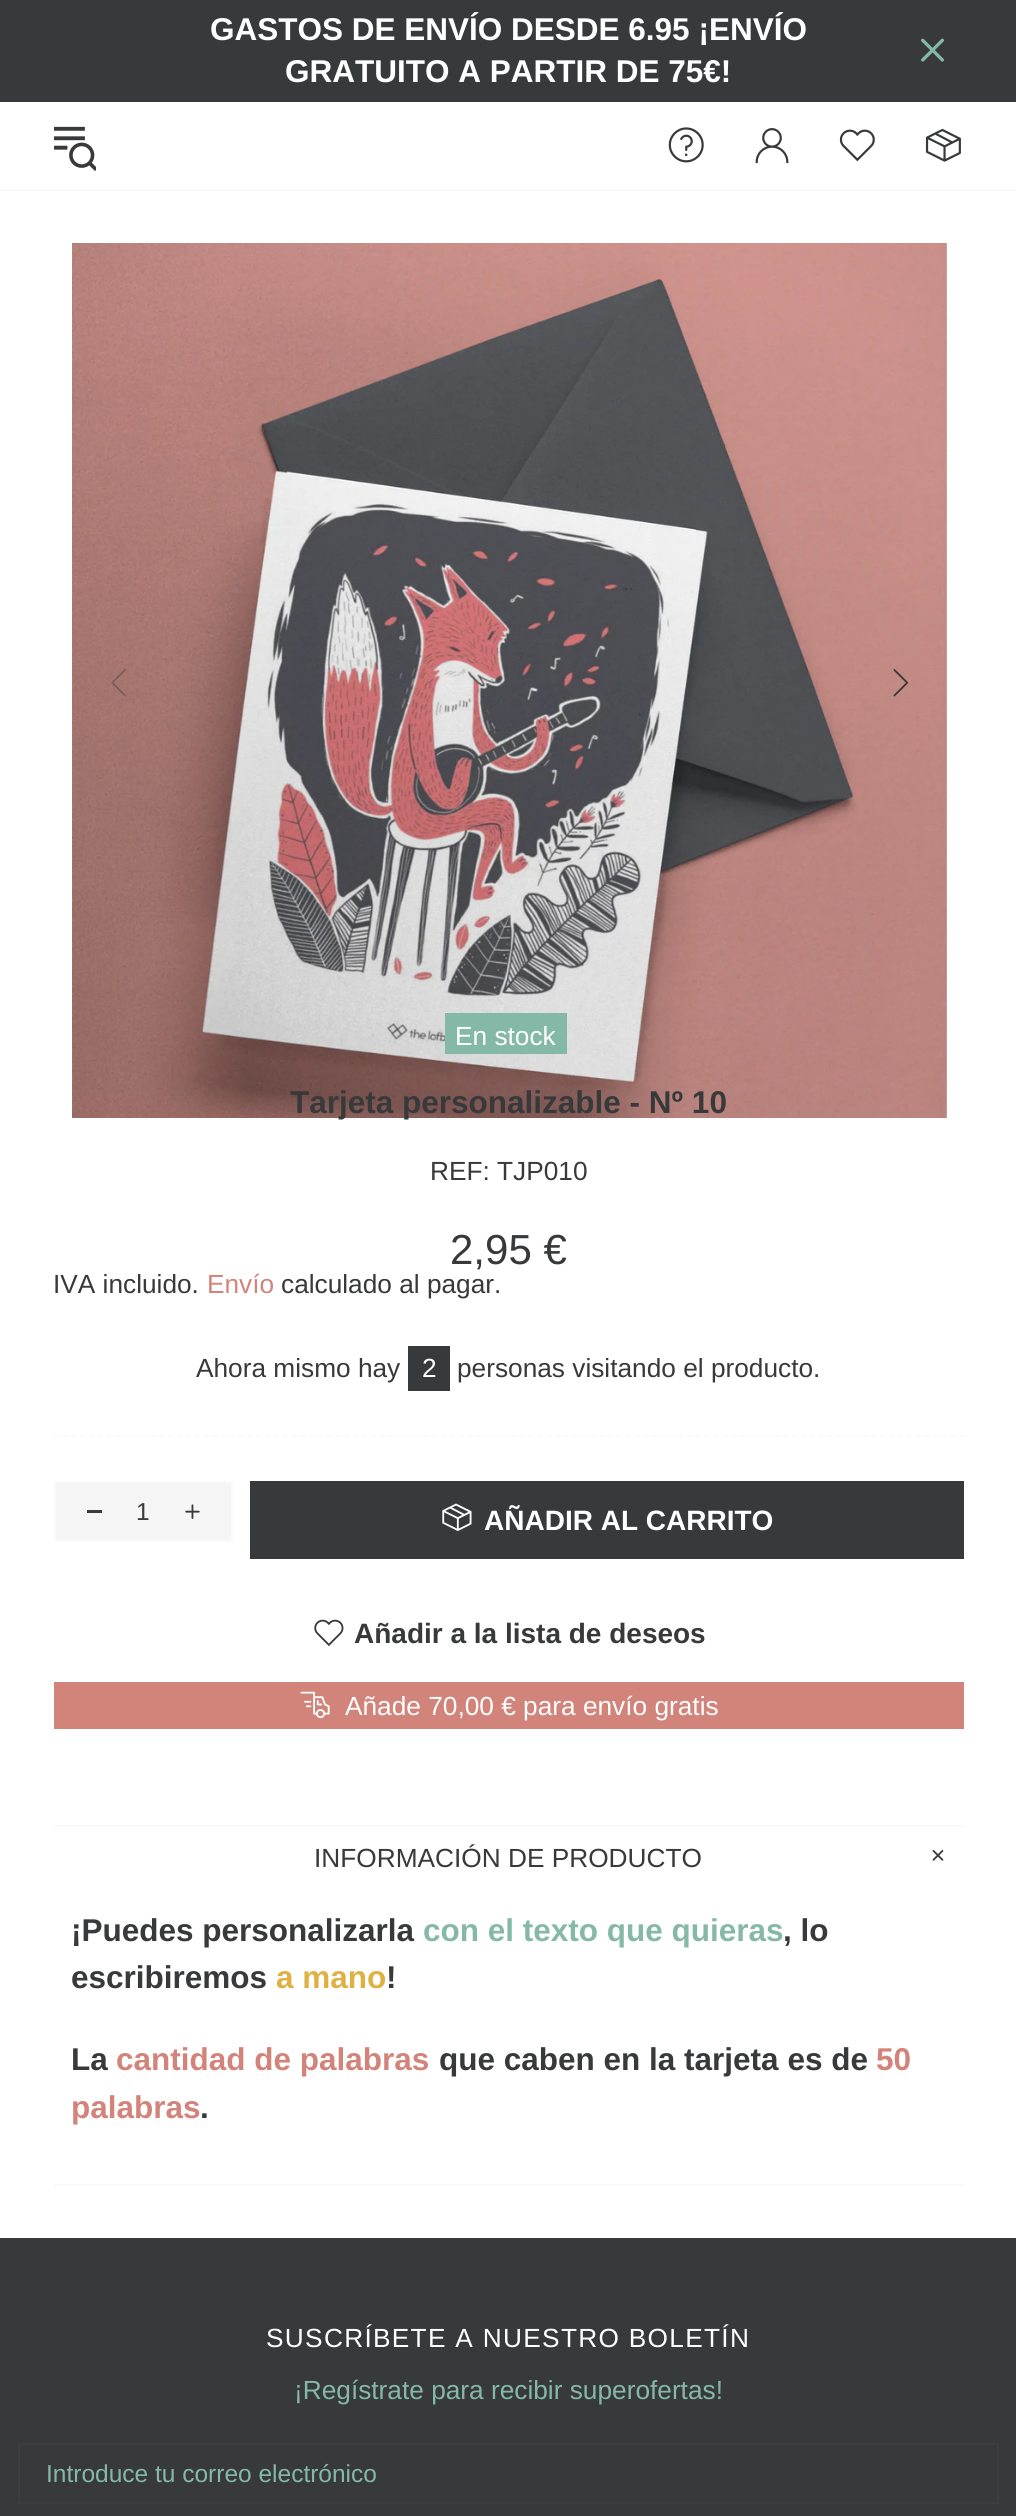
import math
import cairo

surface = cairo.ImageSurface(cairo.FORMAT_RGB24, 1016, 2516)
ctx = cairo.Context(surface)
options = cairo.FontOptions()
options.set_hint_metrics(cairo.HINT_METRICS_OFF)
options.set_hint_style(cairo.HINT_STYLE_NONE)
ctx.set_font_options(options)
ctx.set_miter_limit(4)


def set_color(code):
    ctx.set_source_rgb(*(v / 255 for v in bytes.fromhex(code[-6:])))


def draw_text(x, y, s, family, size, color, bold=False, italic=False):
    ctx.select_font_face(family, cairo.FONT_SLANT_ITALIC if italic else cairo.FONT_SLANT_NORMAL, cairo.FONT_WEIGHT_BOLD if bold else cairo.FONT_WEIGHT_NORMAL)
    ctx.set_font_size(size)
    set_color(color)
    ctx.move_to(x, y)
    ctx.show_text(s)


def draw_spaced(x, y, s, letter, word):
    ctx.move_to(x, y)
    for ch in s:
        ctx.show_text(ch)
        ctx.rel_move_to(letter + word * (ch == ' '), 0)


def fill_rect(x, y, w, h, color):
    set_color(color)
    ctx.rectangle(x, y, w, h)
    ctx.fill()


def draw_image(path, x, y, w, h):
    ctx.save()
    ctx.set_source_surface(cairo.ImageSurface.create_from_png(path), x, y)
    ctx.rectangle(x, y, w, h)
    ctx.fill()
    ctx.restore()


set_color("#ffffff")
ctx.paint()
fill_rect(0, 0, 1016, 102, "#38393a")
draw_text(210, 40, "GASTOS DE ENVÍO DESDE 6.95 ¡ENVÍO", "Liberation Sans", 31.5, "#ffffff", bold=True)
draw_text(285, 82, "GRATUITO A PARTIR DE 75€!", "Liberation Sans", 31.5, "#ffffff", bold=True)
draw_image("assets/img1.png", 921, 38, 23, 24)
fill_rect(0, 189, 1016, 2, "#fafafa")
draw_image("assets/img2.png", 54, 126, 42, 45)
draw_image("assets/img3.png", 668, 127, 36, 36)
draw_image("assets/img4.png", 755, 128, 34, 36)
draw_image("assets/img5.png", 839, 129, 36, 33)
draw_image("assets/img6.png", 925, 128, 36, 34)
draw_image("assets/img7.png", 72, 243, 875, 875)
draw_image("assets/img8.png", 111, 669, 15, 28)
draw_image("assets/img9.png", 893, 669, 16, 28)
fill_rect(445, 1013, 122, 41, "#85b9a7")
draw_text(455, 1045, "En stock", "Liberation Sans", 26.25, "#ffffff")
draw_text(290, 1113, "Tarjeta personalizable - Nº 10", "Liberation Sans", 31.5, "#38393a", bold=True)
draw_text(430, 1180, "REF: TJP010", "Liberation Sans", 26.25, "#38393a")
draw_text(450, 1264, "2,95 €", "Liberation Sans", 42, "#38393a")
draw_text(53, 1293, "IVA incluido.", "Liberation Sans", 26.25, "#38393a")
draw_text(207, 1293, "Envío", "Liberation Sans", 26.25, "#d2837a")
draw_text(281, 1293, "calculado al pagar.", "Liberation Sans", 26.25, "#38393a")
draw_text(196, 1377, "Ahora mismo hay", "Liberation Sans", 26.25, "#38393a")
fill_rect(408, 1346, 42, 45, "#38393a")
draw_text(422, 1377, "2", "Liberation Sans", 26.25, "#ffffff")
draw_text(457, 1377, "personas visitando el producto.", "Liberation Sans", 26.25, "#38393a")
ctx.new_path()
ctx.move_to(54, 1436)
ctx.line_to(964, 1436)
set_color("#fafafa")
ctx.set_line_width(1.8)
ctx.set_dash([5.25, 3.54])
ctx.stroke()
set_color("#f5f5f5")
ctx.rectangle(55, 1482, 177, 59)
ctx.fill_preserve()
set_color("#fafafa")
ctx.set_line_width(2)
ctx.set_dash([])
ctx.stroke()
fill_rect(87, 1510, 15, 3, "#38393a")
draw_text(136, 1520, "1", "Liberation Sans", 24.5, "#38393a")
draw_image("assets/img10.png", 185, 1504, 15, 15)
fill_rect(250, 1481, 714, 78, "#38393a")
draw_image("assets/img11.png", 442, 1503, 30, 28)
draw_text(484, 1530, "AÑADIR AL CARRITO", "Liberation Sans", 28, "#ffffff", bold=True)
draw_image("assets/img12.png", 314, 1619, 30, 27)
draw_text(354, 1643, "Añadir a la lista de deseos", "Liberation Sans", 28, "#38393a", bold=True)
fill_rect(54, 1682, 910, 47, "#d2837a")
draw_image("assets/img13.png", 300, 1691, 30, 28)
draw_text(345, 1715, "Añade 70,00 € para envío gratis", "Liberation Sans", 26.25, "#ffffff")
fill_rect(54, 1825, 910, 2, "#fafafa")
fill_rect(54, 2184, 910, 2, "#fafafa")
draw_text(314, 1867, "INFORMACIÓN DE PRODUCTO", "Liberation Sans", 26.25, "#38393a")
draw_image("assets/img14.png", 932, 1850, 12, 11)
draw_text(71, 1941, "¡Puedes personalizarla", "Liberation Sans", 31.5, "#38393a", bold=True)
draw_text(423, 1941, "con el texto que quieras", "Liberation Sans", 31.5, "#85b9a7", bold=True)
draw_text(783, 1941, ", lo", "Liberation Sans", 31.5, "#38393a", bold=True)
draw_text(71, 1988, "escribiremos", "Liberation Sans", 31.5, "#38393a", bold=True)
draw_text(276, 1988, "a mano", "Liberation Sans", 31.5, "#dfb143", bold=True)
draw_text(386, 1988, "!", "Liberation Sans", 31.5, "#38393a", bold=True)
draw_text(71, 2070, "La", "Liberation Sans", 31.5, "#38393a", bold=True)
draw_text(116, 2070, "cantidad de palabras", "Liberation Sans", 31.5, "#d2837a", bold=True)
draw_text(439, 2070, "que caben en la tarjeta es de", "Liberation Sans", 31.5, "#38393a", bold=True)
draw_text(876, 2070, "50", "Liberation Sans", 31.5, "#d2837a", bold=True)
draw_text(71, 2118, "palabras", "Liberation Sans", 31.5, "#d2837a", bold=True)
draw_text(200, 2118, ".", "Liberation Sans", 31.5, "#38393a", bold=True)
fill_rect(0, 2238, 1016, 278, "#38393a")
ctx.select_font_face("Liberation Sans")
ctx.set_font_size(26.25)
set_color("#ffffff")
draw_spaced(266, 2347, "SUSCRÍBETE A NUESTRO BOLETÍN", 1.3, 0)
draw_text(294, 2399, "¡Regístrate para recibir superofertas!", "Liberation Sans", 26.25, "#85b9a7")
ctx.rectangle(19, 2444, 979, 59)
set_color("#3e3e3e")
ctx.stroke()
draw_text(46, 2482, "Introduce tu correo electrónico", "Liberation Sans", 24.5, "#85b9a7")
surface.write_to_png("output.png")
